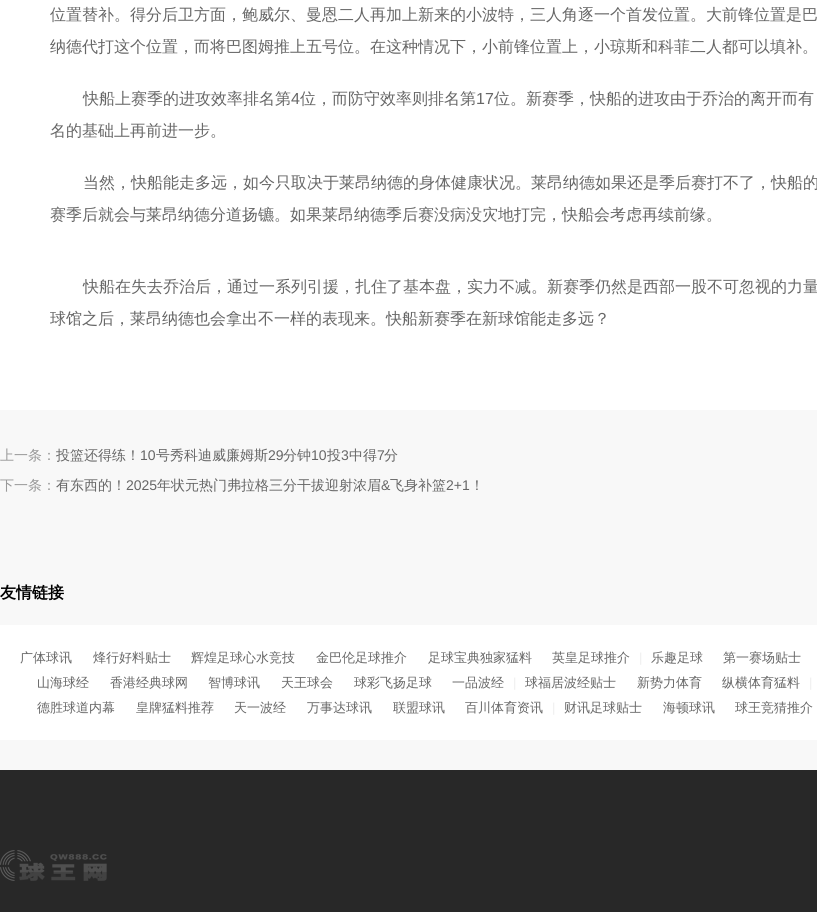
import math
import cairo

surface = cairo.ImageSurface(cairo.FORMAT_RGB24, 817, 912)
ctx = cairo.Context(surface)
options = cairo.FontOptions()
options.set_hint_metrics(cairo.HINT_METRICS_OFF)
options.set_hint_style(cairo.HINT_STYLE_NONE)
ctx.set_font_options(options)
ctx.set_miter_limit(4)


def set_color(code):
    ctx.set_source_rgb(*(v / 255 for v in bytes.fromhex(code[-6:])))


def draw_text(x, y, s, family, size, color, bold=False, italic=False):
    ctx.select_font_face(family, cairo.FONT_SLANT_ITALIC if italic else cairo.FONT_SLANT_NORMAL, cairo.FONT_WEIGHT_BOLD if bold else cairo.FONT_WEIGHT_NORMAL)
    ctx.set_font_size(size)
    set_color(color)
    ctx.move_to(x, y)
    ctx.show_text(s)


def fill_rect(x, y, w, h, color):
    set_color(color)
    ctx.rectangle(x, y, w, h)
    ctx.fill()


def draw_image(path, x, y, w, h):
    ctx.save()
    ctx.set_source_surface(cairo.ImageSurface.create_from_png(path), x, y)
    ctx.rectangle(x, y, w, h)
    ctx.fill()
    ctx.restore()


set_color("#f8f8f8")
ctx.paint()
fill_rect(0, 0, 817, 410, "#ffffff")
draw_text(50, 20, "位置替补。得分后卫方面，鲍威尔、曼恩二人再加上新来的小波特，三人角逐一个首发位置。大前锋位置是巴", "WenQuanYi Zen Hei Medium", 16, "#666666")
draw_text(50, 52, "纳德代打这个位置，而将巴图姆推上五号位。在这种情况下，小前锋位置上，小琼斯和科菲二人都可以填补。", "WenQuanYi Zen Hei Medium", 16, "#666666")
draw_text(83, 104, "快船上赛季的进攻效率排名第", "WenQuanYi Zen Hei Medium", 16, "#666666")
draw_text(291, 104, "4", "Liberation Sans", 16, "#666666")
draw_text(300, 104, "位，而防守效率则排名第", "WenQuanYi Zen Hei Medium", 16, "#666666")
draw_text(476, 104, "17", "Liberation Sans", 16, "#666666")
draw_text(494, 104, "位。新赛季，快船的进攻由于乔治的离开而有", "WenQuanYi Zen Hei Medium", 16, "#666666")
draw_text(50, 136, "名的基础上再前进一步。", "WenQuanYi Zen Hei Medium", 16, "#666666")
draw_text(83, 188, "当然，快船能走多远，如今只取决于莱昂纳德的身体健康状况。莱昂纳德如果还是季后赛打不了，快船的", "WenQuanYi Zen Hei Medium", 16, "#666666")
draw_text(50, 220, "赛季后就会与莱昂纳德分道扬镳。如果莱昂纳德季后赛没病没灾地打完，快船会考虑再续前缘。", "WenQuanYi Zen Hei Medium", 16, "#666666")
draw_text(83, 292, "快船在失去乔治后，通过一系列引援，扎住了基本盘，实力不减。新赛季仍然是西部一股不可忽视的力量", "WenQuanYi Zen Hei Medium", 16, "#666666")
draw_text(50, 324, "球馆之后，莱昂纳德也会拿出不一样的表现来。快船新赛季在新球馆能走多远？", "WenQuanYi Zen Hei Medium", 16, "#666666")
draw_text(0, 460, "上一条：", "WenQuanYi Zen Hei Medium", 14, "#999999")
draw_text(56, 460, "投篮还得练！", "WenQuanYi Zen Hei Medium", 14, "#666666")
draw_text(140, 460, "10", "Liberation Sans", 14, "#666666")
draw_text(156, 460, "号秀科迪威廉姆斯", "WenQuanYi Zen Hei Medium", 14, "#666666")
draw_text(268, 460, "29", "Liberation Sans", 14, "#666666")
draw_text(283, 460, "分钟", "WenQuanYi Zen Hei Medium", 14, "#666666")
draw_text(311, 460, "10", "Liberation Sans", 14, "#666666")
draw_text(327, 460, "投", "WenQuanYi Zen Hei Medium", 14, "#666666")
draw_text(341, 460, "3", "Liberation Sans", 14, "#666666")
draw_text(349, 460, "中得", "WenQuanYi Zen Hei Medium", 14, "#666666")
draw_text(377, 460, "7", "Liberation Sans", 14, "#666666")
draw_text(384, 460, "分", "WenQuanYi Zen Hei Medium", 14, "#666666")
draw_text(0, 490, "下一条：", "WenQuanYi Zen Hei Medium", 14, "#999999")
draw_text(56, 490, "有东西的！", "WenQuanYi Zen Hei Medium", 14, "#666666")
draw_text(126, 490, "2025", "Liberation Sans", 14, "#666666")
draw_text(157, 490, "年状元热门弗拉格三分干拔迎射浓眉", "WenQuanYi Zen Hei Medium", 14, "#666666")
draw_text(381, 490, "&", "Liberation Sans", 14, "#666666")
draw_text(390, 490, "飞身补篮", "WenQuanYi Zen Hei Medium", 14, "#666666")
draw_text(446, 490, "2+1", "Liberation Sans", 14, "#666666")
draw_text(470, 490, "！", "WenQuanYi Zen Hei Medium", 14, "#666666")
draw_text(0, 598, "友情链接", "WenQuanYi Zen Hei", 16, "#000000", bold=True)
fill_rect(0, 625, 817, 115, "#ffffff")
draw_text(20, 662, "广体球讯", "WenQuanYi Zen Hei Medium", 13, "#666666")
draw_text(93, 662, "烽行好料贴士", "WenQuanYi Zen Hei Medium", 13, "#666666")
draw_text(191, 662, "辉煌足球心水竞技", "WenQuanYi Zen Hei Medium", 13, "#666666")
draw_text(316, 662, "金巴伦足球推介", "WenQuanYi Zen Hei Medium", 13, "#666666")
draw_text(428, 662, "足球宝典独家猛料", "WenQuanYi Zen Hei Medium", 13, "#666666")
draw_text(552, 662, "英皇足球推介", "WenQuanYi Zen Hei Medium", 13, "#666666")
draw_text(639, 662, "|", "Liberation Sans", 13, "#eeeeee")
draw_text(651, 662, "乐趣足球", "WenQuanYi Zen Hei Medium", 13, "#666666")
draw_text(723, 662, "第一赛场贴士", "WenQuanYi Zen Hei Medium", 13, "#666666")
draw_text(37, 687, "山海球经", "WenQuanYi Zen Hei Medium", 13, "#666666")
draw_text(110, 687, "香港经典球网", "WenQuanYi Zen Hei Medium", 13, "#666666")
draw_text(208, 687, "智博球讯", "WenQuanYi Zen Hei Medium", 13, "#666666")
draw_text(281, 687, "天王球会", "WenQuanYi Zen Hei Medium", 13, "#666666")
draw_text(354, 687, "球彩飞扬足球", "WenQuanYi Zen Hei Medium", 13, "#666666")
draw_text(452, 687, "一品波经", "WenQuanYi Zen Hei Medium", 13, "#666666")
draw_text(513, 687, "|", "Liberation Sans", 13, "#eeeeee")
draw_text(525, 687, "球福居波经贴士", "WenQuanYi Zen Hei Medium", 13, "#666666")
draw_text(637, 687, "新势力体育", "WenQuanYi Zen Hei Medium", 13, "#666666")
draw_text(722, 687, "纵横体育猛料", "WenQuanYi Zen Hei Medium", 13, "#666666")
draw_text(809, 687, "|", "Liberation Sans", 13, "#eeeeee")
draw_text(37, 712, "德胜球道内幕", "WenQuanYi Zen Hei Medium", 13, "#666666")
draw_text(136, 712, "皇牌猛料推荐", "WenQuanYi Zen Hei Medium", 13, "#666666")
draw_text(234, 712, "天一波经", "WenQuanYi Zen Hei Medium", 13, "#666666")
draw_text(307, 712, "万事达球讯", "WenQuanYi Zen Hei Medium", 13, "#666666")
draw_text(393, 712, "联盟球讯", "WenQuanYi Zen Hei Medium", 13, "#666666")
draw_text(465, 712, "百川体育资讯", "WenQuanYi Zen Hei Medium", 13, "#666666")
draw_text(552, 712, "|", "Liberation Sans", 13, "#eeeeee")
draw_text(564, 712, "财讯足球贴士", "WenQuanYi Zen Hei Medium", 13, "#666666")
draw_text(663, 712, "海顿球讯", "WenQuanYi Zen Hei Medium", 13, "#666666")
draw_text(735, 712, "球王竞猜推介", "WenQuanYi Zen Hei Medium", 13, "#666666")
fill_rect(0, 770, 817, 142, "#282828")
draw_image("assets/img1.png", 0, 850, 107, 31)
surface.write_to_png("output.png")
